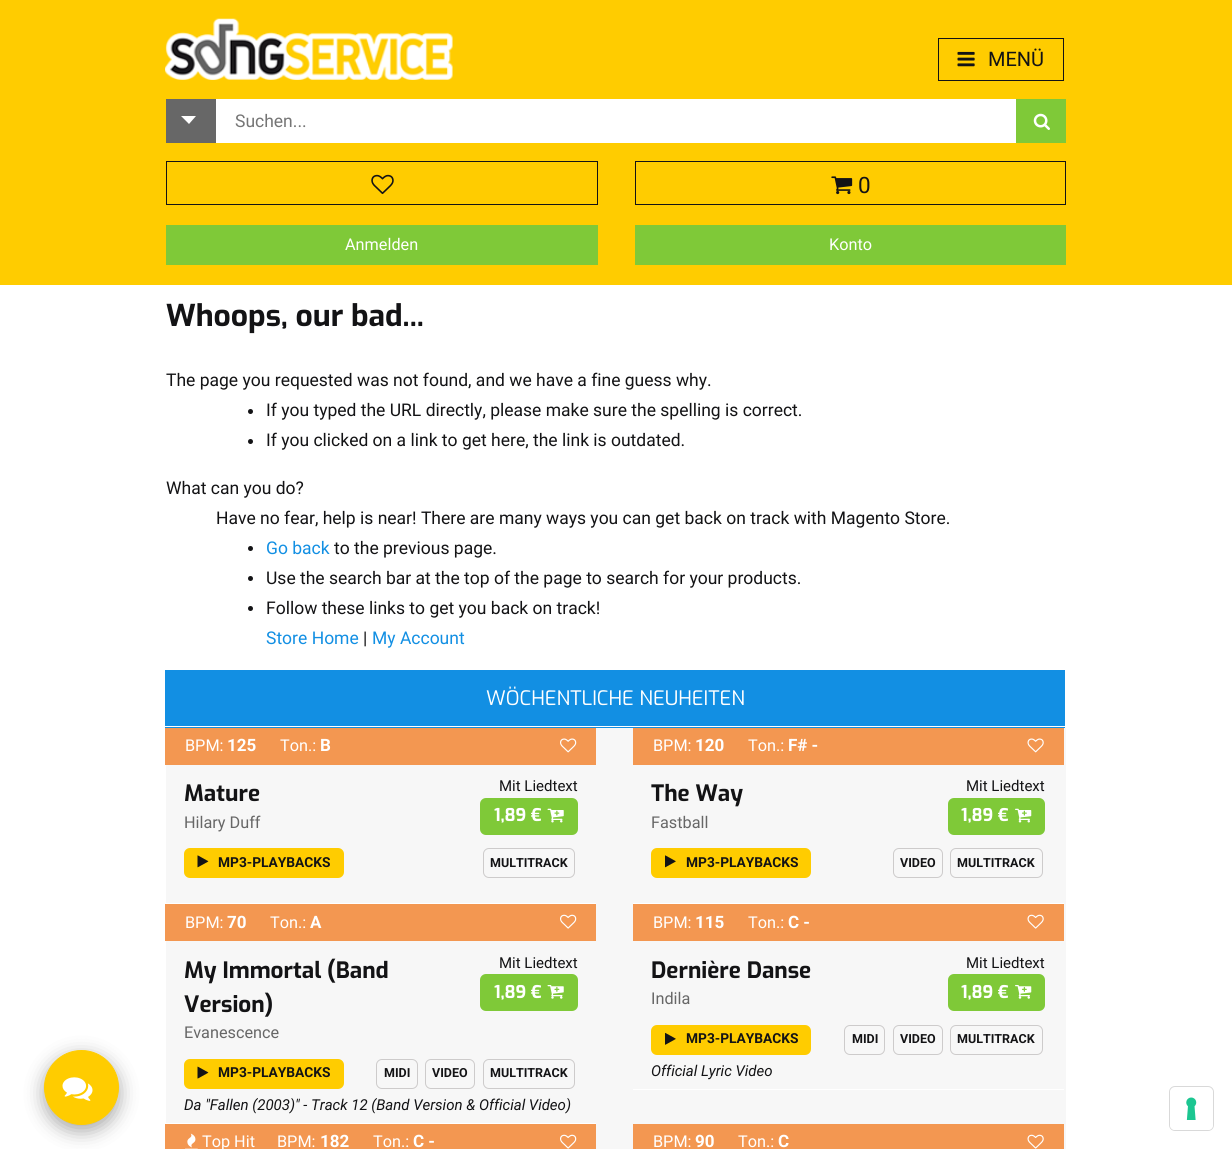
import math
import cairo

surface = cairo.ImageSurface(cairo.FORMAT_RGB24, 1232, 1149)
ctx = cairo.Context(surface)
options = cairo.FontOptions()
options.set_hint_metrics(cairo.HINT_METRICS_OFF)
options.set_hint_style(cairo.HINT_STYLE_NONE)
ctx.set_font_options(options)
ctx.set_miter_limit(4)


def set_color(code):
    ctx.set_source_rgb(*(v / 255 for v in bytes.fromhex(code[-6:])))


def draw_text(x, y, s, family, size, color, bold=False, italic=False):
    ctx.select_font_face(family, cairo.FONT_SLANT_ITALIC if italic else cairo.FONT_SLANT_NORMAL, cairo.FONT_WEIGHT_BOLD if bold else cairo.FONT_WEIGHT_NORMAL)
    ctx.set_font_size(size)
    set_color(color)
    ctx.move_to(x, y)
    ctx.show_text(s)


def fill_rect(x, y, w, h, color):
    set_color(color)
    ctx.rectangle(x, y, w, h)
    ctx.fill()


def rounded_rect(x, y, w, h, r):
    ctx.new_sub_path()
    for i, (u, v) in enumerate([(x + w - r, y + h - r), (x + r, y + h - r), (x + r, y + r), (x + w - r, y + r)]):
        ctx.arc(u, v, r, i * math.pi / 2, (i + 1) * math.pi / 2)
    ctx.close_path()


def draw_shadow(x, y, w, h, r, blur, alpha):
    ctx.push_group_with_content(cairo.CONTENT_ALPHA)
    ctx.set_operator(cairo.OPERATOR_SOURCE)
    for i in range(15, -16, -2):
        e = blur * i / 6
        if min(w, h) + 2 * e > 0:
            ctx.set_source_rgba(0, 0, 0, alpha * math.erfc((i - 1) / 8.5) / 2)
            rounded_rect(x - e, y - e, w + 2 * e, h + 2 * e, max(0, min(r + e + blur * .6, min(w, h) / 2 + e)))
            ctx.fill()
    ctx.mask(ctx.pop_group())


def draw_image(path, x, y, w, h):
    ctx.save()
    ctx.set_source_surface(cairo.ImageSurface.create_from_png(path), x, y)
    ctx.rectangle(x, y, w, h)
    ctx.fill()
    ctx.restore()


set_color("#ffffff")
ctx.paint()
fill_rect(0, 0, 1232, 285, "#ffcc00")
draw_image("assets/img1.png", 165, 18, 288, 62)
ctx.rectangle(938.5, 38.5, 125, 42)
set_color("#131315")
ctx.set_line_width(1)
ctx.stroke()
draw_image("assets/img2.png", 957, 51, 18, 16)
draw_text(988, 66, "MENÜ", "Roboto", 20, "#131315")
fill_rect(166, 99, 50, 44, "#676767")
set_color("#ffffff")
ctx.new_path()
ctx.move_to(181, 116)
ctx.line_to(196, 116)
ctx.line_to(189, 124)
ctx.close_path()
ctx.fill()
fill_rect(216, 99, 800, 44, "#ffffff")
draw_text(235, 127, "Suchen...", "Roboto", 17.5, "#757575")
fill_rect(1016, 99, 50, 44, "#7fc938")
draw_image("assets/img3.png", 1033, 113, 17, 17)
ctx.rectangle(166.5, 161.5, 431, 43)
set_color("#131315")
ctx.stroke()
draw_image("assets/img4.png", 371, 174, 23, 21)
ctx.rectangle(635.5, 161.5, 430, 43)
ctx.stroke()
draw_image("assets/img5.png", 831, 176, 22, 19)
draw_text(858, 193, "0", "Roboto", 22.5, "#131315")
fill_rect(166, 225, 432, 40, "#7fc938")
draw_text(345, 250, "Anmelden", "Roboto", 16.25, "#ffffff")
fill_rect(635, 225, 431, 40, "#7fc938")
draw_text(829, 250, "Konto", "Roboto", 16.25, "#ffffff")
set_color("#000000")
draw_shadow(44, 1056, 75, 75, 37.5, 9.5, 0.35)
set_color("#ffcc00")
ctx.arc(81.5, 1087.5, 37, 0, 2 * math.pi)
ctx.fill_preserve()
ctx.stroke()
draw_image("assets/img6.png", 62, 1077, 31, 24)
draw_text(166, 326, "Whoops, our bad...", "Exo", 30, "#131315", bold=True)
draw_text(166, 386, "The page you requested was not found, and we have a fine guess why.", "Roboto", 17.5, "#131315")
ctx.new_path()
ctx.arc(250.5, 411.5, 2.5, 0, 2 * math.pi)
ctx.fill()
draw_text(266, 416, "If you typed the URL directly, please make sure the spelling is correct.", "Roboto", 17.5, "#131315")
ctx.new_path()
ctx.arc(250.5, 441.5, 2.5, 0, 2 * math.pi)
ctx.fill()
draw_text(266, 446, "If you clicked on a link to get here, the link is outdated.", "Roboto", 17.5, "#131315")
draw_text(166, 494, "What can you do?", "Roboto", 17.5, "#131315")
draw_text(216, 524, "Have no fear, help is near! There are many ways you can get back on track with Magento Store.", "Roboto", 17.5, "#131315")
ctx.new_path()
ctx.arc(250.5, 548.5, 2.5, 0, 2 * math.pi)
ctx.fill()
draw_text(266, 554, "Go back", "Roboto", 17.5, "#128fe3")
draw_text(334, 554, "to the previous page.", "Roboto", 17.5, "#131315")
ctx.new_path()
ctx.arc(250.5, 578.5, 2.5, 0, 2 * math.pi)
ctx.fill()
draw_text(266, 584, "Use the search bar at the top of the page to search for your products.", "Roboto", 17.5, "#131315")
ctx.new_path()
ctx.arc(250.5, 608.5, 2.5, 0, 2 * math.pi)
ctx.fill()
draw_text(266, 614, "Follow these links to get you back on track!", "Roboto", 17.5, "#131315")
draw_text(266, 644, "Store Home", "Roboto", 17.5, "#128fe3")
draw_text(363, 644, "|", "Roboto", 17.5, "#131315")
draw_text(372, 644, "My Account", "Roboto", 17.5, "#128fe3")
fill_rect(165, 670, 900, 58, "#128fe3")
fill_rect(165, 726, 900, 1, "#ffffff")
draw_text(486, 705, "WÖCHENTLICHE NEUHEITEN", "Exo", 20, "#ffffff")
fill_rect(166, 728, 900, 421, "#f7f7f7")
fill_rect(165, 903, 431, 1, "#ffffff")
fill_rect(165, 728, 431, 37, "#f39751")
draw_text(185, 751, "BPM:", "Roboto", 16.25, "#ffffff")
draw_text(227, 751, "125", "Roboto", 17, "#ffffff", bold=True)
draw_text(280, 751, "Ton.:", "Roboto", 16.25, "#ffffff")
draw_text(320, 751, "B", "Roboto", 17, "#ffffff", bold=True)
draw_image("assets/img7.png", 560, 738, 17, 15)
draw_text(184, 801, "Mature", "Exo", 22.5, "#131315", bold=True)
draw_text(184, 828, "Hilary Duff", "Roboto", 16.25, "#676767")
draw_text(499, 791, "Mit Liedtext", "Roboto", 15, "#131315")
set_color("#7fc938")
rounded_rect(480, 798, 98, 37, 6)
ctx.fill()
draw_text(494, 821, "1,89 €", "Exo", 17.5, "#ffffff", bold=True)
draw_image("assets/img8.png", 547, 808, 17, 15)
set_color("#ffcc00")
rounded_rect(184, 848, 160, 30, 6)
ctx.fill()
draw_image("assets/img9.png", 197, 855, 12, 13)
draw_text(218, 867, "MP3-PLAYBACKS", "Roboto", 13.75, "#131315", bold=True)
rounded_rect(483.5, 848.5, 91, 29, 5.5)
set_color("#cdcbcb")
ctx.stroke()
draw_text(490, 867, "MULTITRACK", "Roboto", 12.5, "#131315", bold=True)
fill_rect(633, 903, 431, 1, "#ffffff")
fill_rect(633, 728, 431, 37, "#f39751")
draw_text(653, 751, "BPM:", "Roboto", 16.25, "#ffffff")
draw_text(695, 751, "120", "Roboto", 17, "#ffffff", bold=True)
draw_text(748, 751, "Ton.:", "Roboto", 16.25, "#ffffff")
draw_text(788, 751, "F# -", "Roboto", 17, "#ffffff", bold=True)
draw_image("assets/img10.png", 1027, 738, 17, 15)
draw_text(651, 801, "The Way", "Exo", 22.5, "#131315", bold=True)
draw_text(651, 828, "Fastball", "Roboto", 16.25, "#676767")
draw_text(966, 791, "Mit Liedtext", "Roboto", 15, "#131315")
set_color("#7fc938")
rounded_rect(948, 798, 97, 37, 6)
ctx.fill()
draw_text(961, 821, "1,89 €", "Exo", 17.5, "#ffffff", bold=True)
draw_image("assets/img11.png", 1015, 808, 17, 15)
set_color("#ffcc00")
rounded_rect(651, 848, 160, 30, 6)
ctx.fill()
draw_image("assets/img12.png", 665, 855, 11, 13)
draw_text(686, 867, "MP3-PLAYBACKS", "Roboto", 13.75, "#131315", bold=True)
rounded_rect(893.5, 848.5, 49, 29, 5.5)
set_color("#cdcbcb")
ctx.stroke()
draw_text(900, 867, "VIDEO", "Roboto", 12.5, "#131315", bold=True)
rounded_rect(950.5, 848.5, 92, 29, 5.5)
set_color("#cdcbcb")
ctx.stroke()
draw_text(957, 867, "MULTITRACK", "Roboto", 12.5, "#131315", bold=True)
fill_rect(165, 1123, 431, 1, "#ffffff")
fill_rect(165, 904, 431, 37, "#f39751")
draw_text(185, 928, "BPM:", "Roboto", 16.25, "#ffffff")
draw_text(227, 928, "70", "Roboto", 17, "#ffffff", bold=True)
draw_text(270, 928, "Ton.:", "Roboto", 16.25, "#ffffff")
draw_text(310, 928, "A", "Roboto", 17, "#ffffff", bold=True)
draw_image("assets/img13.png", 560, 914, 17, 15)
draw_text(184, 978, "My Immortal (Band", "Exo", 22.5, "#131315", bold=True)
draw_text(184, 1012, "Version)", "Exo", 22.5, "#131315", bold=True)
draw_text(184, 1038, "Evanescence", "Roboto", 16.25, "#676767")
draw_text(499, 968, "Mit Liedtext", "Roboto", 15, "#131315")
set_color("#7fc938")
rounded_rect(480, 974, 98, 37, 6)
ctx.fill()
draw_text(494, 998, "1,89 €", "Exo", 17.5, "#ffffff", bold=True)
draw_image("assets/img14.png", 547, 985, 17, 14)
set_color("#ffcc00")
rounded_rect(184, 1059, 160, 30, 6)
ctx.fill()
draw_image("assets/img15.png", 197, 1066, 12, 13)
draw_text(218, 1077, "MP3-PLAYBACKS", "Roboto", 13.75, "#131315", bold=True)
rounded_rect(376.5, 1059.5, 41, 29, 5.5)
set_color("#cdcbcb")
ctx.stroke()
draw_text(384, 1077, "MIDI", "Roboto", 12.5, "#131315", bold=True)
rounded_rect(425.5, 1059.5, 49, 29, 5.5)
set_color("#cdcbcb")
ctx.stroke()
draw_text(432, 1077, "VIDEO", "Roboto", 12.5, "#131315", bold=True)
rounded_rect(483.5, 1059.5, 91, 29, 5.5)
set_color("#cdcbcb")
ctx.stroke()
draw_text(490, 1077, "MULTITRACK", "Roboto", 12.5, "#131315", bold=True)
draw_text(184, 1110, "Da \"Fallen (2003)\" - Track 12 (Band Version & Official Video)", "Roboto", 15, "#131315", italic=True)
fill_rect(633, 1089, 431, 1, "#ffffff")
fill_rect(633, 904, 431, 37, "#f39751")
draw_text(653, 928, "BPM:", "Roboto", 16.25, "#ffffff")
draw_text(695, 928, "115", "Roboto", 17, "#ffffff", bold=True)
draw_text(748, 928, "Ton.:", "Roboto", 16.25, "#ffffff")
draw_text(788, 928, "C -", "Roboto", 17, "#ffffff", bold=True)
draw_image("assets/img16.png", 1027, 914, 17, 15)
draw_text(651, 978, "Dernière Danse", "Exo", 22.5, "#131315", bold=True)
draw_text(651, 1004, "Indila", "Roboto", 16.25, "#676767")
draw_text(966, 968, "Mit Liedtext", "Roboto", 15, "#131315")
set_color("#7fc938")
rounded_rect(948, 974, 97, 37, 6)
ctx.fill()
draw_text(961, 998, "1,89 €", "Exo", 17.5, "#ffffff", bold=True)
draw_image("assets/img17.png", 1015, 985, 17, 14)
set_color("#ffcc00")
rounded_rect(651, 1025, 160, 30, 6)
ctx.fill()
draw_image("assets/img18.png", 665, 1032, 11, 13)
draw_text(686, 1043, "MP3-PLAYBACKS", "Roboto", 13.75, "#131315", bold=True)
rounded_rect(844.5, 1025.5, 40, 29, 5.5)
set_color("#cdcbcb")
ctx.stroke()
draw_text(852, 1043, "MIDI", "Roboto", 12.5, "#131315", bold=True)
rounded_rect(893.5, 1025.5, 49, 29, 5.5)
set_color("#cdcbcb")
ctx.stroke()
draw_text(900, 1043, "VIDEO", "Roboto", 12.5, "#131315", bold=True)
rounded_rect(950.5, 1025.5, 92, 29, 5.5)
set_color("#cdcbcb")
ctx.stroke()
draw_text(957, 1043, "MULTITRACK", "Roboto", 12.5, "#131315", bold=True)
draw_text(651, 1076, "Official Lyric Video", "Roboto", 15, "#131315", italic=True)
fill_rect(165, 1124, 431, 25, "#f39751")
draw_image("assets/img19.png", 185, 1133, 13, 16)
draw_text(202, 1147, "Top Hit", "Roboto", 16.25, "#ffffff")
draw_text(277, 1147, "BPM:", "Roboto", 16.25, "#ffffff")
draw_text(320, 1147, "182", "Roboto", 17, "#ffffff", bold=True)
draw_text(373, 1147, "Ton.:", "Roboto", 16.25, "#ffffff")
draw_text(413, 1147, "C -", "Roboto", 17, "#ffffff", bold=True)
draw_image("assets/img13.png", 560, 1134, 17, 15)
fill_rect(633, 1124, 431, 25, "#f39751")
draw_text(653, 1147, "BPM:", "Roboto", 16.25, "#ffffff")
draw_text(695, 1147, "90", "Roboto", 17, "#ffffff", bold=True)
draw_text(738, 1147, "Ton.:", "Roboto", 16.25, "#ffffff")
draw_text(778, 1147, "C", "Roboto", 17, "#ffffff", bold=True)
draw_image("assets/img16.png", 1027, 1134, 17, 15)
rounded_rect(1169.5, 1086.5, 44, 44, 5.5)
set_color("#d9d9d9")
ctx.stroke()
set_color("#ffffff")
rounded_rect(1170, 1088, 43, 42, 5)
ctx.fill()
draw_image("assets/img20.png", 1186, 1097, 11, 23)
surface.write_to_png("output.png")
